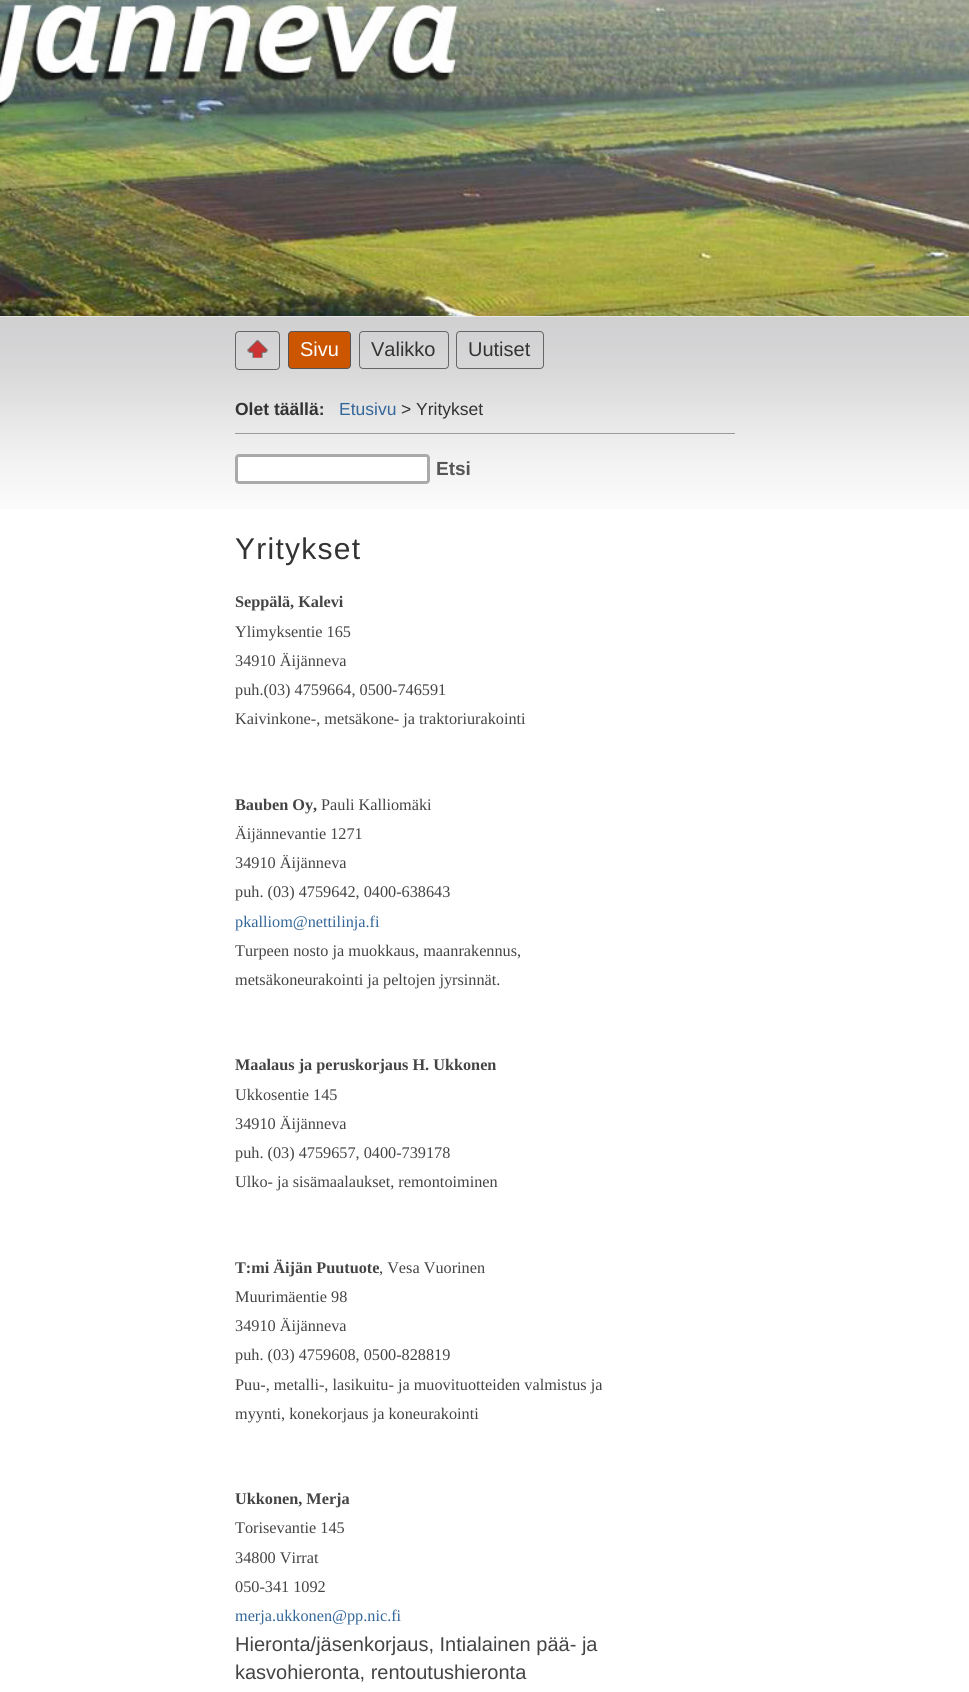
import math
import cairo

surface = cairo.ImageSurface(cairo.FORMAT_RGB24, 969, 1692)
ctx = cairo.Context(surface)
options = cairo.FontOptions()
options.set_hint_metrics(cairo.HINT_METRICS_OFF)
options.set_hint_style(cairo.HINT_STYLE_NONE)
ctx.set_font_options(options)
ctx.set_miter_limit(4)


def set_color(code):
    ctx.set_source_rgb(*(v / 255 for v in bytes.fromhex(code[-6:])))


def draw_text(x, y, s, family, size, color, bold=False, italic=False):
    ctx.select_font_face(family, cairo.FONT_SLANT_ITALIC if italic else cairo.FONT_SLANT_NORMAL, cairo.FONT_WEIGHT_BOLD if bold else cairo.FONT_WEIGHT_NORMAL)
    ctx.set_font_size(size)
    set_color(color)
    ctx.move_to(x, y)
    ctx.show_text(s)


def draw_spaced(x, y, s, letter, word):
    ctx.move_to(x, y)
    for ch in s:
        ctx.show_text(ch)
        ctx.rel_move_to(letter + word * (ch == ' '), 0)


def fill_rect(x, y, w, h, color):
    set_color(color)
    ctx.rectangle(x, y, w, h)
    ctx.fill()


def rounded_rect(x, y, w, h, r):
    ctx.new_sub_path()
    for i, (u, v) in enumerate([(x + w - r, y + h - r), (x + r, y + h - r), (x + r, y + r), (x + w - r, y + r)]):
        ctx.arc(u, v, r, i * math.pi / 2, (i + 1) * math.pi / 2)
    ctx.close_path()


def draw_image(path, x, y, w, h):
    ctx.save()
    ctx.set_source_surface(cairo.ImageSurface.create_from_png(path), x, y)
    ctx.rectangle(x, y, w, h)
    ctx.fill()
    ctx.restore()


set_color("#ffffff")
ctx.paint()
draw_image("assets/img1.png", 0, 0, 969, 316)
draw_image("assets/img2.png", 0, 316, 969, 193)
rounded_rect(235.5, 331.5, 44, 38, 3.5)
set_color("#666666")
ctx.set_line_width(1)
ctx.stroke()
draw_image("assets/img3.png", 247, 340, 21, 18)
set_color("#cc5500")
rounded_rect(288.5, 331.5, 62, 37, 3.5)
ctx.fill_preserve()
set_color("#555555")
ctx.stroke()
draw_text(300, 356, "Sivu", "Liberation Sans", 20, "#ffffff")
rounded_rect(359.5, 331.5, 89, 37, 3.5)
set_color("#666666")
ctx.stroke()
draw_text(371, 356, "Valikko", "Liberation Sans", 20, "#333333")
rounded_rect(456.5, 331.5, 87, 37, 3.5)
set_color("#666666")
ctx.stroke()
draw_text(468, 356, "Uutiset", "Liberation Sans", 20, "#333333")
fill_rect(235, 433, 500, 1, "#999999")
draw_text(235, 415, "Olet täällä:", "Liberation Sans", 17.5, "#333333", bold=True)
draw_text(339, 415, "Etusivu", "Liberation Sans", 17.5, "#336699")
draw_text(401, 415, "> Yritykset", "Liberation Sans", 17.5, "#333333")
set_color("#ffffff")
rounded_rect(236.5, 455.5, 192, 27, 2.5)
ctx.fill_preserve()
set_color("#aaaaaa")
ctx.set_line_width(3)
ctx.stroke()
draw_text(436, 475, "Etsi", "Liberation Sans", 19, "#555555", bold=True)
ctx.select_font_face("Liberation Sans")
ctx.set_font_size(30)
set_color("#333333")
draw_spaced(235, 559, "Yritykset", 1.25, 0)
draw_text(235, 607, "Seppälä, Kalevi", "Liberation Serif", 16.25, "#444444", bold=True)
draw_text(235, 637, "Ylimyksentie 165", "Liberation Serif", 16.25, "#444444")
draw_text(235, 666, "34910 Äijänneva", "Liberation Serif", 16.25, "#444444")
draw_text(235, 695, "puh.(03) 4759664, 0500-746591", "Liberation Serif", 16.25, "#444444")
draw_text(235, 724, "Kaivinkone-, metsäkone- ja traktoriurakointi", "Liberation Serif", 16.25, "#444444")
draw_text(235, 810, "Bauben Oy,", "Liberation Serif", 16.25, "#444444", bold=True)
draw_text(321, 810, "Pauli Kalliomäki", "Liberation Serif", 16.25, "#444444")
draw_text(235, 839, "Äijännevantie 1271", "Liberation Serif", 16.25, "#444444")
draw_text(235, 868, "34910 Äijänneva", "Liberation Serif", 16.25, "#444444")
draw_text(235, 897, "puh. (03) 4759642, 0400-638643", "Liberation Serif", 16.25, "#444444")
draw_text(235, 927, "pkalliom@nettilinja.fi", "Liberation Serif", 16.25, "#336699")
draw_text(235, 956, "Turpeen nosto ja muokkaus, maanrakennus,", "Liberation Serif", 16.25, "#444444")
draw_text(235, 985, "metsäkoneurakointi ja peltojen jyrsinnät.", "Liberation Serif", 16.25, "#444444")
draw_text(235, 1070, "Maalaus ja peruskorjaus H. Ukkonen", "Liberation Serif", 16.25, "#444444", bold=True)
draw_text(235, 1100, "Ukkosentie 145", "Liberation Serif", 16.25, "#444444")
draw_text(235, 1129, "34910 Äijänneva", "Liberation Serif", 16.25, "#444444")
draw_text(235, 1158, "puh. (03) 4759657, 0400-739178", "Liberation Serif", 16.25, "#444444")
draw_text(235, 1187, "Ulko- ja sisämaalaukset, remontoiminen", "Liberation Serif", 16.25, "#444444")
draw_text(235, 1273, "T:mi Äijän Puutuote", "Liberation Serif", 16.25, "#444444", bold=True)
draw_text(379, 1273, ", Vesa Vuorinen", "Liberation Serif", 16.25, "#444444")
draw_text(235, 1302, "Muurimäentie 98", "Liberation Serif", 16.25, "#444444")
draw_text(235, 1331, "34910 Äijänneva", "Liberation Serif", 16.25, "#444444")
draw_text(235, 1360, "puh. (03) 4759608, 0500-828819", "Liberation Serif", 16.25, "#444444")
draw_text(235, 1390, "Puu-, metalli-, lasikuitu- ja muovituotteiden valmistus ja", "Liberation Serif", 16.25, "#444444")
draw_text(235, 1419, "myynti, konekorjaus ja koneurakointi", "Liberation Serif", 16.25, "#444444")
draw_text(235, 1504, "Ukkonen, Merja", "Liberation Serif", 16.25, "#444444", bold=True)
draw_text(235, 1533, "Torisevantie 145", "Liberation Serif", 16.25, "#444444")
draw_text(235, 1563, "34800 Virrat", "Liberation Serif", 16.25, "#444444")
draw_text(235, 1592, "050-341 1092", "Liberation Serif", 16.25, "#444444")
draw_text(235, 1621, "merja.ukkonen@pp.nic.fi", "Liberation Serif", 16.25, "#336699")
draw_text(235, 1651, "Hieronta/jäsenkorjaus, Intialainen pää- ja", "Liberation Sans", 20, "#444444")
draw_text(235, 1679, "kasvohieronta, rentoutushieronta", "Liberation Sans", 20, "#444444")
surface.write_to_png("output.png")
